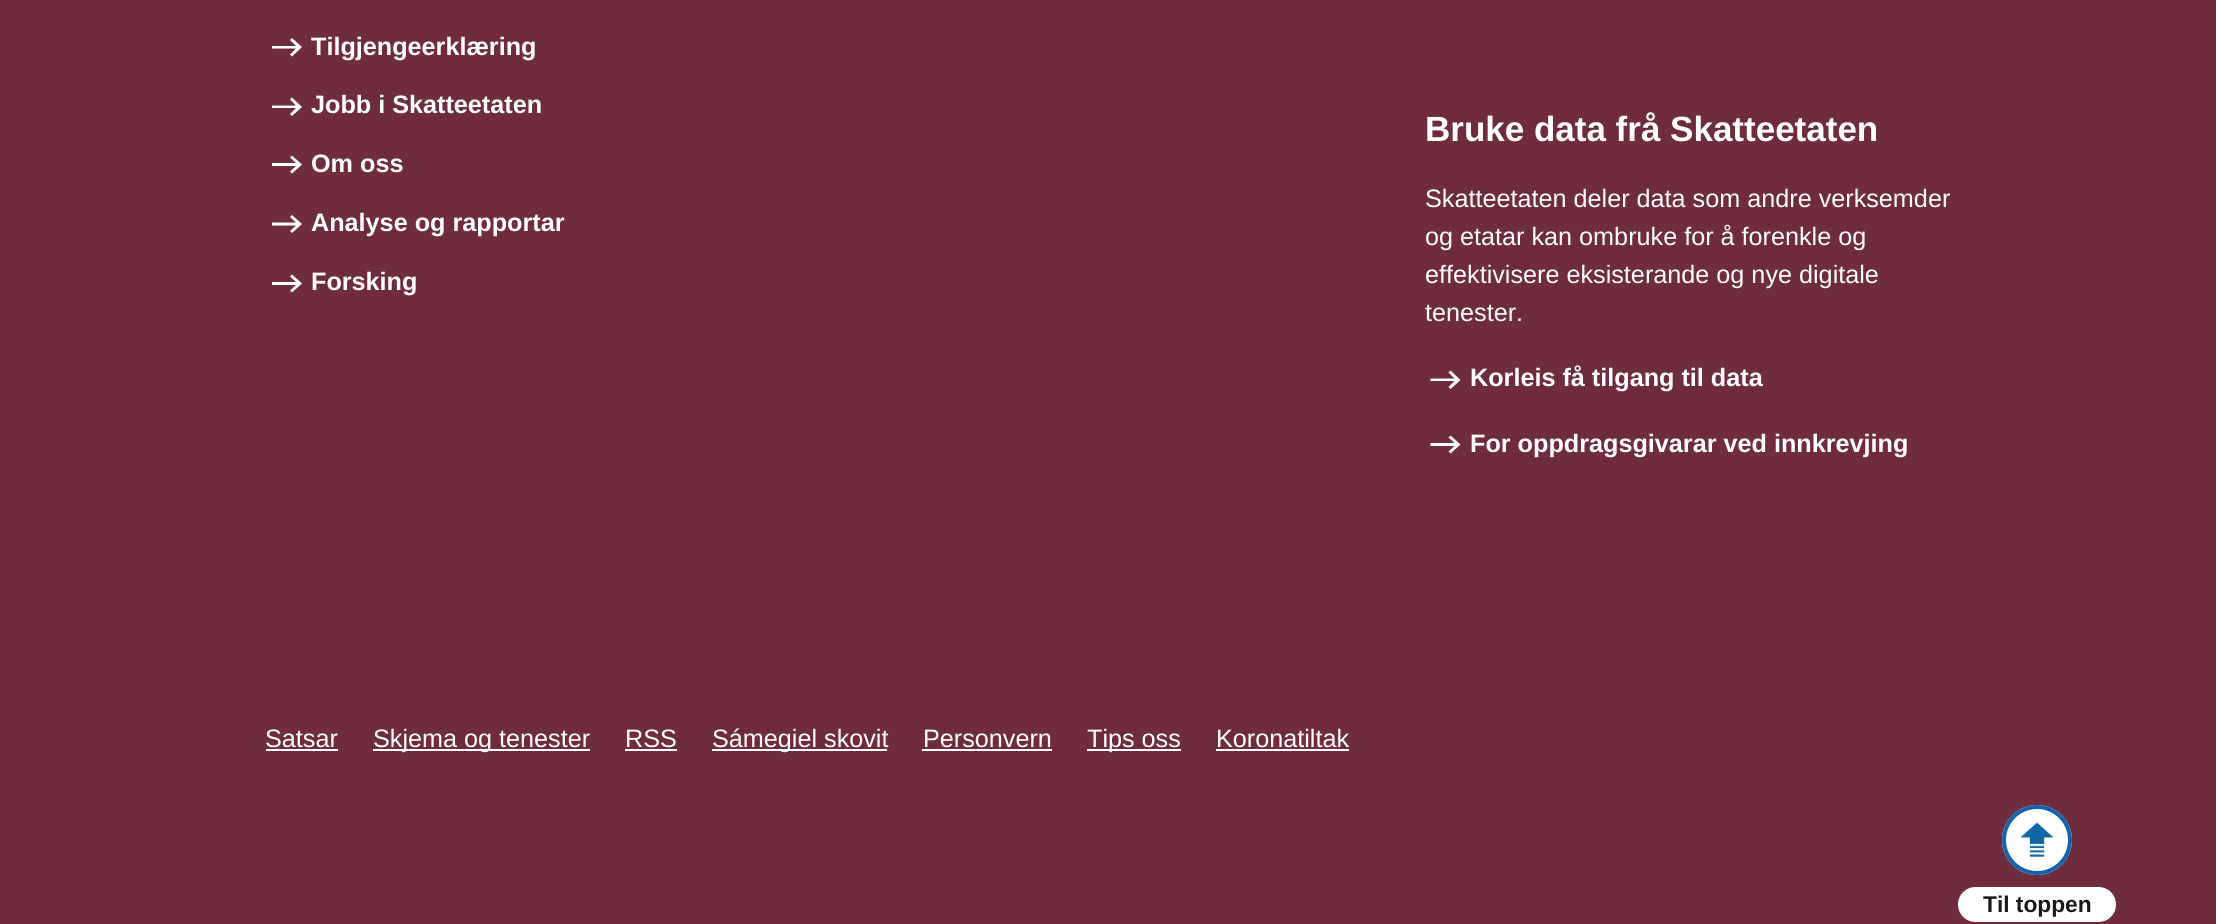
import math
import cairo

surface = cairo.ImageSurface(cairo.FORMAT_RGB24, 2216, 924)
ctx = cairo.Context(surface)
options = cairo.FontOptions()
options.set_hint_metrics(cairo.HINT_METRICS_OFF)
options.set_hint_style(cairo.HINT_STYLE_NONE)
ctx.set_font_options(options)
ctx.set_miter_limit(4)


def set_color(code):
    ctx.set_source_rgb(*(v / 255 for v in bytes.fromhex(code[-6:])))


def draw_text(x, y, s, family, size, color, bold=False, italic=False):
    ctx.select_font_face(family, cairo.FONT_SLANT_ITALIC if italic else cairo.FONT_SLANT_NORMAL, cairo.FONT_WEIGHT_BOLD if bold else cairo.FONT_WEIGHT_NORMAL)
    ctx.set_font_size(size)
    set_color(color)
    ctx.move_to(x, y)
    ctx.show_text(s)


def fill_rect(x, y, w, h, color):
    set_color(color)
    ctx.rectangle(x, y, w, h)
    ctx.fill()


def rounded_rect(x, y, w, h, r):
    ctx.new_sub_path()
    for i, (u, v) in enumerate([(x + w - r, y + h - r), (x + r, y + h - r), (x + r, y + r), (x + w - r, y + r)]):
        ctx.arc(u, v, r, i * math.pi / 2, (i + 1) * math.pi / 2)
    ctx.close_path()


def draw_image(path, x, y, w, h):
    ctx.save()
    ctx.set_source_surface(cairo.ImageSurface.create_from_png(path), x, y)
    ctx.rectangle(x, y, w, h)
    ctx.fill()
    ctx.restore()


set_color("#6f2c3f")
ctx.paint()
set_color("#ffffff")
ctx.new_path()
ctx.move_to(290, 40)
ctx.line_to(292, 38)
ctx.line_to(302, 47)
ctx.line_to(292, 56.5)
ctx.line_to(290, 54.5)
ctx.line_to(296, 48.5)
ctx.line_to(272, 48.5)
ctx.line_to(272, 46)
ctx.line_to(296, 46)
ctx.close_path()
ctx.fill()
draw_text(311, 55, "Tilgjengeerklæring", "Liberation Sans", 25.2, "#ffffff", bold=True)
ctx.new_path()
ctx.move_to(290, 99.5)
ctx.line_to(292, 97.5)
ctx.line_to(302, 107)
ctx.line_to(292, 116)
ctx.line_to(290, 114)
ctx.line_to(296, 108)
ctx.line_to(272, 108)
ctx.line_to(272, 105.5)
ctx.line_to(296, 105.5)
ctx.close_path()
ctx.fill()
draw_text(311, 113, "Jobb i Skatteetaten", "Liberation Sans", 25.2, "#ffffff", bold=True)
ctx.new_path()
ctx.move_to(290, 157.5)
ctx.line_to(292, 155.5)
ctx.line_to(302, 164.5)
ctx.line_to(292, 173.5)
ctx.line_to(290, 171.5)
ctx.line_to(296, 166)
ctx.line_to(272, 166)
ctx.line_to(272, 163)
ctx.line_to(296, 163)
ctx.close_path()
ctx.fill()
draw_text(311, 172, "Om oss", "Liberation Sans", 25.2, "#ffffff", bold=True)
ctx.new_path()
ctx.move_to(290, 217)
ctx.line_to(292, 215)
ctx.line_to(302, 224)
ctx.line_to(292, 233)
ctx.line_to(290, 231)
ctx.line_to(296, 225.5)
ctx.line_to(272, 225.5)
ctx.line_to(272, 222.5)
ctx.line_to(296, 222.5)
ctx.close_path()
ctx.fill()
draw_text(311, 231, "Analyse og rapportar", "Liberation Sans", 25.2, "#ffffff", bold=True)
ctx.new_path()
ctx.move_to(290, 276.5)
ctx.line_to(292, 274.5)
ctx.line_to(302, 283.5)
ctx.line_to(292, 292.5)
ctx.line_to(290, 290.5)
ctx.line_to(296, 285)
ctx.line_to(272, 285)
ctx.line_to(272, 282)
ctx.line_to(296, 282)
ctx.close_path()
ctx.fill()
draw_text(311, 290, "Forsking", "Liberation Sans", 25.2, "#ffffff", bold=True)
draw_text(1425, 141, "Bruke data frå Skatteetaten", "Liberation Sans", 35, "#ffffff", bold=True)
draw_text(1425, 207, "Skatteetaten deler data som andre verksemder", "Liberation Sans", 25.2, "#ffffff")
draw_text(1425, 245, "og etatar kan ombruke for å forenkle og", "Liberation Sans", 25.2, "#ffffff")
draw_text(1425, 283, "effektivisere eksisterande og nye digitale", "Liberation Sans", 25.2, "#ffffff")
draw_text(1425, 321, "tenester.", "Liberation Sans", 25.2, "#ffffff")
ctx.new_path()
ctx.move_to(1448.5, 372.5)
ctx.line_to(1450.5, 370.5)
ctx.line_to(1460.5, 380)
ctx.line_to(1450.5, 389)
ctx.line_to(1448.5, 387)
ctx.line_to(1454.5, 381)
ctx.line_to(1430.5, 381)
ctx.line_to(1430.5, 378.5)
ctx.line_to(1454.5, 378.5)
ctx.close_path()
ctx.fill()
draw_text(1470, 386, "Korleis få tilgang til data", "Liberation Sans", 25.2, "#ffffff", bold=True)
ctx.new_path()
ctx.move_to(1448.5, 437.5)
ctx.line_to(1450.5, 435.5)
ctx.line_to(1460.5, 444.5)
ctx.line_to(1450.5, 453.5)
ctx.line_to(1448.5, 451.5)
ctx.line_to(1454.5, 446)
ctx.line_to(1430.5, 446)
ctx.line_to(1430.5, 443)
ctx.line_to(1454.5, 443)
ctx.close_path()
ctx.fill()
draw_text(1470, 452, "For oppdragsgivarar ved innkrevjing", "Liberation Sans", 25.2, "#ffffff", bold=True)
draw_text(265, 747, "Satsar", "Liberation Sans", 25.2, "#ffffff")
fill_rect(266, 749, 72, 2, "#ffffff")
fill_rect(373, 749, 217, 2, "#ffffff")
draw_text(373, 747, "Skjema og tenester", "Liberation Sans", 25.2, "#ffffff")
draw_text(625, 747, "RSS", "Liberation Sans", 25.2, "#ffffff")
fill_rect(625, 749, 52, 2, "#ffffff")
fill_rect(712, 749, 175, 2, "#ffffff")
draw_text(712, 747, "Sámegiel skovit", "Liberation Sans", 25.2, "#ffffff")
draw_text(923, 747, "Personvern", "Liberation Sans", 25.2, "#ffffff")
fill_rect(922, 749, 130, 2, "#ffffff")
fill_rect(1087, 749, 94, 2, "#ffffff")
draw_text(1087, 747, "Tips oss", "Liberation Sans", 25.2, "#ffffff")
draw_text(1216, 747, "Koronatiltak", "Liberation Sans", 25.2, "#ffffff")
fill_rect(1216, 749, 133, 2, "#ffffff")
ctx.new_path()
ctx.arc(2037, 840, 35, 0, 2 * math.pi)
ctx.fill()
draw_image("assets/img1.png", 2021, 822, 32, 35)
ctx.arc(2037, 840, 33, 0, 2 * math.pi)
set_color("#1362ae")
ctx.set_line_width(4)
ctx.stroke()
set_color("#ffffff")
rounded_rect(1958, 887, 158, 35, 17.5)
ctx.fill()
draw_text(1983, 912, "Til toppen", "Liberation Sans", 22.75, "#1a1a1a", bold=True)
surface.write_to_png("output.png")
